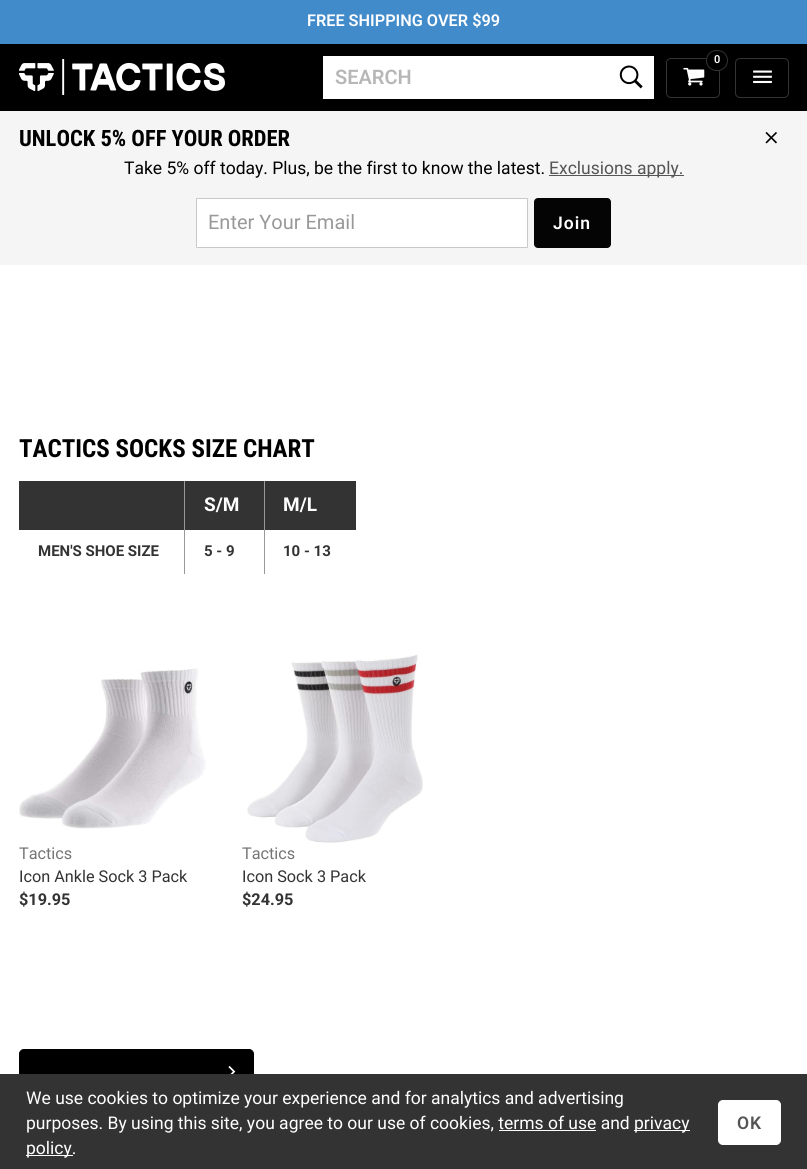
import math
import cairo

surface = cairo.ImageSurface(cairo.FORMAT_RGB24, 807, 1169)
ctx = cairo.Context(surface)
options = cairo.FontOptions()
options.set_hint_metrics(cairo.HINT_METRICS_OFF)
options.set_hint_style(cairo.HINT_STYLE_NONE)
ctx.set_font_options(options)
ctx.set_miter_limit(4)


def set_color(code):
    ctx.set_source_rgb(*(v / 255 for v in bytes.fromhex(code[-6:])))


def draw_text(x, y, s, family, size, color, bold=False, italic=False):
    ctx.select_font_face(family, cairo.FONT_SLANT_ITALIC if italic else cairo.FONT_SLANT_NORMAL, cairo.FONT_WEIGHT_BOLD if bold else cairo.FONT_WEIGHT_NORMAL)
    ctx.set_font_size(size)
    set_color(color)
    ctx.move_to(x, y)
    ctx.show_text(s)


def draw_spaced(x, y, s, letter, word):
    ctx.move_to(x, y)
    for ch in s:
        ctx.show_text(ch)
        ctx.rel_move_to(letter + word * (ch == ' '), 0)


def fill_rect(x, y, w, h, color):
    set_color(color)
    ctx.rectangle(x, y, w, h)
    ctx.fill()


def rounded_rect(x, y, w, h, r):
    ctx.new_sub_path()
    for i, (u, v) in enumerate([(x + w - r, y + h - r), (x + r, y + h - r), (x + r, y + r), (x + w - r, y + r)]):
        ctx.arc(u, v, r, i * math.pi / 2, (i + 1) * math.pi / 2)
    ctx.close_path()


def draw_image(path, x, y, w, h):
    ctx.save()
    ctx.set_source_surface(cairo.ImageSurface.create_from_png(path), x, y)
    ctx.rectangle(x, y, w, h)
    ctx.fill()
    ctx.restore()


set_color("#ffffff")
ctx.paint()
fill_rect(0, 44, 807, 67, "#000000")
fill_rect(0, 0, 807, 44, "#428bca")
draw_text(307, 26, "FREE SHIPPING OVER $99", "Roboto SemiBold", 16.25, "#ffffff")
draw_image("assets/img1.png", 19, 59, 206, 36)
fill_rect(323, 56, 331, 43, "#ffffff")
draw_text(335, 84, "SEARCH", "Roboto SemiBold", 20, "#b7b7b7")
draw_image("assets/img2.png", 619, 65, 24, 24)
rounded_rect(666.5, 58.5, 53, 39, 4.5)
set_color("#333333")
ctx.set_line_width(1)
ctx.stroke()
set_color("#000000")
rounded_rect(706.5, 50.5, 21, 20, 10)
ctx.fill_preserve()
set_color("#333333")
ctx.stroke()
draw_text(714, 63, "0", "Roboto SemiBold", 11, "#ffffff")
draw_image("assets/img3.png", 683, 67, 22, 19)
rounded_rect(735.5, 58.5, 53, 39, 4.5)
set_color("#333333")
ctx.stroke()
draw_image("assets/img4.png", 753, 70, 19, 14)
fill_rect(0, 111, 807, 154, "#f5f5f5")
draw_text(19, 146, "UNLOCK 5% OFF YOUR ORDER", "Roboto", 22.5, "#000000", bold=True)
draw_text(124, 174, "Take 5% off today. Plus, be the first to know the latest.", "Roboto", 17.5, "#000000")
fill_rect(549, 175, 135, 1, "#555555")
draw_text(549, 174, "Exclusions apply.", "Roboto", 17.5, "#555555")
set_color("#ffffff")
rounded_rect(196.5, 198.5, 331, 49, 0.5)
ctx.fill_preserve()
set_color("#c9c9c9")
ctx.stroke()
draw_text(208, 229, "Enter Your Email", "Roboto", 20, "#999999")
set_color("#040404")
rounded_rect(534, 198, 77, 50, 4)
ctx.fill()
ctx.select_font_face("Roboto SemiBold")
ctx.set_font_size(17.5)
set_color("#ffffff")
draw_spaced(553, 229, "Join", 1, 0)
draw_image("assets/img5.png", 765, 132, 12, 12)
draw_text(19, 457, "TACTICS SOCKS SIZE CHART", "Roboto", 25, "#000000", bold=True)
fill_rect(19, 481, 337, 49, "#333333")
draw_text(204, 511, "S/M", "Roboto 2", 19, "#ffffff", bold=True)
draw_text(283, 511, "M/L", "Roboto 2", 19, "#ffffff", bold=True)
draw_text(38, 556, "MEN'S SHOE SIZE", "Roboto 2", 15, "#333333", bold=True)
fill_rect(184, 481, 1, 93, "#999999")
draw_text(204, 556, "5 - 9", "Roboto 2", 15, "#333333", bold=True)
fill_rect(264, 481, 1, 93, "#999999")
draw_text(283, 556, "10 - 13", "Roboto 2", 15, "#333333", bold=True)
draw_image("assets/img6.png", 19, 668, 187, 161)
draw_text(19, 859, "Tactics", "Roboto", 16.25, "#757575")
draw_text(19, 882, "Icon Ankle Sock 3 Pack", "Roboto", 16.25, "#333333")
draw_text(19, 905, "$19.95", "Roboto 2", 16.25, "#333333", bold=True)
draw_image("assets/img7.png", 247, 655, 176, 188)
draw_text(242, 859, "Tactics", "Roboto", 16.25, "#757575")
draw_text(242, 882, "Icon Sock 3 Pack", "Roboto", 16.25, "#333333")
draw_text(242, 905, "$24.95", "Roboto 2", 16.25, "#333333", bold=True)
set_color("#000000")
rounded_rect(19.5, 1049.5, 234, 44, 4.5)
ctx.fill_preserve()
ctx.stroke()
draw_image("assets/img8.png", 228, 1066, 8, 8)
fill_rect(0, 1074, 807, 95, "#333333")
draw_text(26, 1104, "We use cookies to optimize your experience and for analytics and advertising", "Roboto", 17.5, "#ffffff")
draw_text(26, 1129, "purposes. By using this site, you agree to our use of cookies, terms of use and", "Roboto", 17.5, "#ffffff")
fill_rect(634, 1130, 56, 1, "#ffffff")
draw_text(634, 1129, "privacy", "Roboto", 17.5, "#ffffff")
fill_rect(499, 1130, 97, 1, "#ffffff")
fill_rect(26, 1155, 47, 1, "#ffffff")
draw_text(26, 1154, "policy.", "Roboto", 17.5, "#ffffff")
rounded_rect(718.5, 1100.5, 62, 44, 4.5)
ctx.fill_preserve()
ctx.stroke()
ctx.select_font_face("Roboto SemiBold")
set_color("#555555")
draw_spaced(737, 1129, "OK", 1, 0)
surface.write_to_png("output.png")
